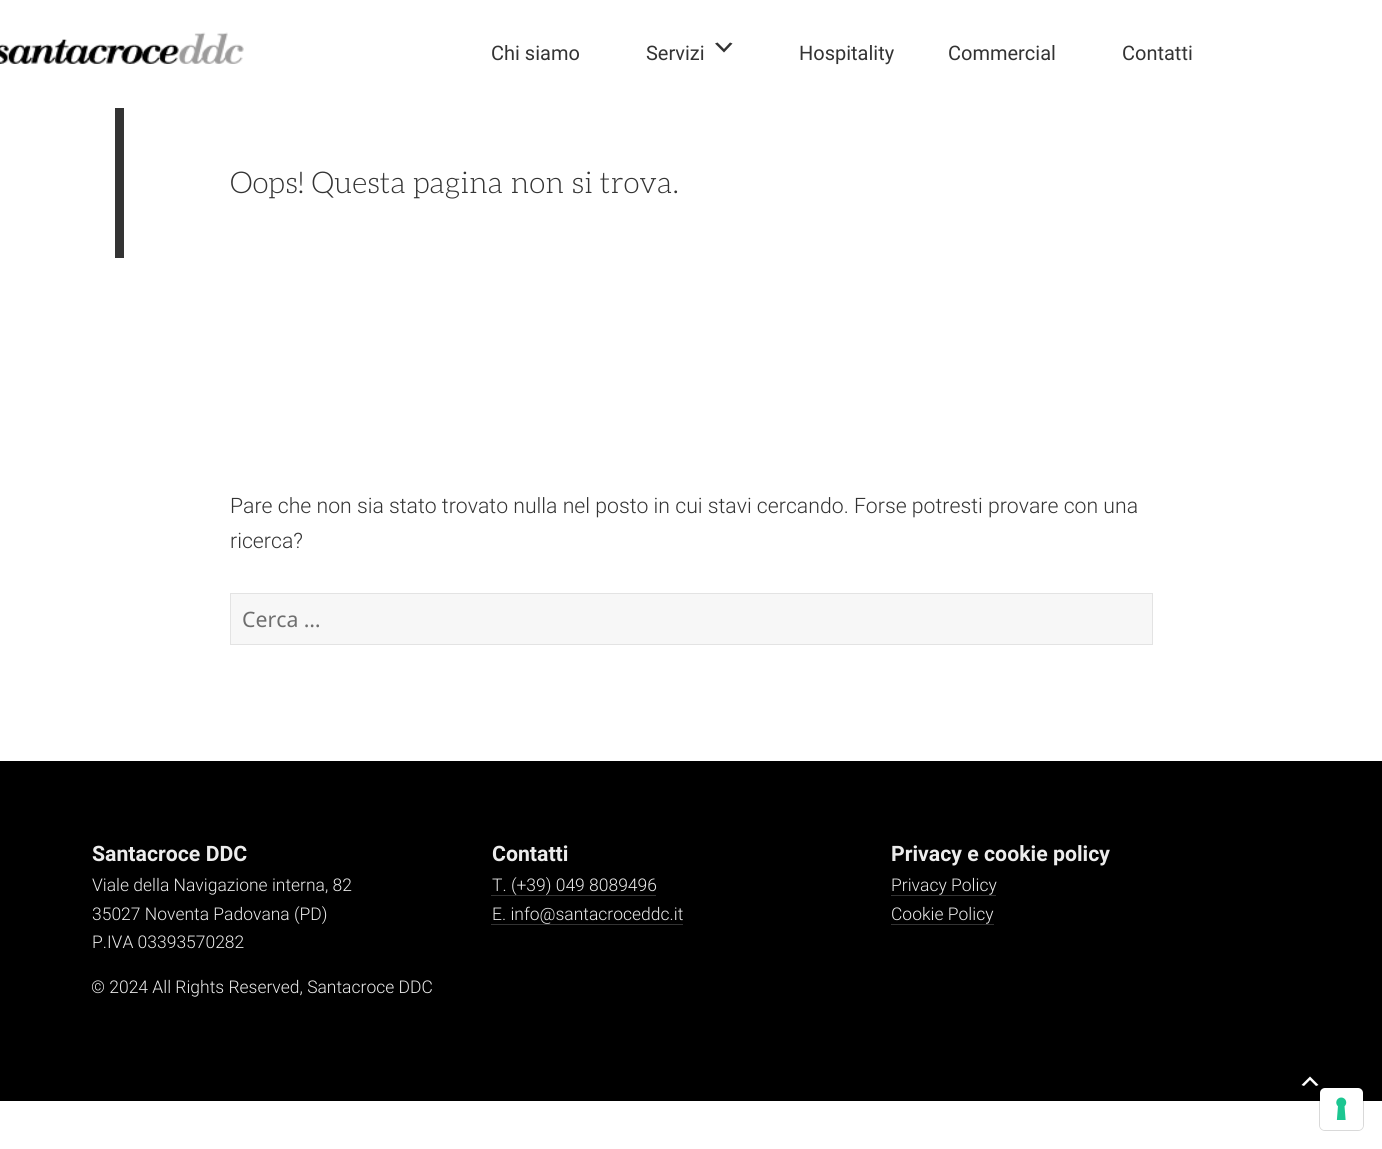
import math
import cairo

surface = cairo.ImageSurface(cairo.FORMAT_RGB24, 1382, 1149)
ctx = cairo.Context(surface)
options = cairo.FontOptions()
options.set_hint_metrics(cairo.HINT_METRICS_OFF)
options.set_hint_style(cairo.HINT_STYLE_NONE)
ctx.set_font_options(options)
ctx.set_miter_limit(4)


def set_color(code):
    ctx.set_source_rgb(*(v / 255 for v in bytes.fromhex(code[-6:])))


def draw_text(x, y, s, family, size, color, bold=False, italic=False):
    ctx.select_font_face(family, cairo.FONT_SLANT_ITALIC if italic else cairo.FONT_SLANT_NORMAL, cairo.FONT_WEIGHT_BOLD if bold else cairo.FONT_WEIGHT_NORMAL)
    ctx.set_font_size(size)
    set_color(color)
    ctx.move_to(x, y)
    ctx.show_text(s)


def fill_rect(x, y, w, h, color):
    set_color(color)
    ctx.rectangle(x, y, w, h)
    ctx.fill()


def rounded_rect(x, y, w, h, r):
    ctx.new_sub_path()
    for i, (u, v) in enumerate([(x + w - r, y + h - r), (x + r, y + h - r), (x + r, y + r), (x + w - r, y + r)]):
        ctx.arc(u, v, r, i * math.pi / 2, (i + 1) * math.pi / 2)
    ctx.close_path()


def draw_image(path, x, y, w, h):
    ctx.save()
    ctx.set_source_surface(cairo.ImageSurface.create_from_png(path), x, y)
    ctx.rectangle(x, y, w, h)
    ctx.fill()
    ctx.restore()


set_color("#ffffff")
ctx.paint()
draw_image("assets/img1.png", 0, 32, 244, 32)
draw_text(491, 60, "Chi siamo", "Roboto", 20, "#333333")
draw_text(646, 60, "Servizi", "Roboto", 20, "#333333")
ctx.new_path()
ctx.move_to(717.5, 42.5)
ctx.line_to(724, 49)
ctx.line_to(730, 42.5)
ctx.line_to(732.5, 43.5)
ctx.line_to(724, 52.5)
ctx.line_to(715, 43.5)
ctx.close_path()
ctx.fill()
draw_text(799, 60, "Hospitality", "Roboto", 20, "#333333")
draw_text(948, 60, "Commercial", "Roboto", 20, "#333333")
draw_text(1122, 60, "Contatti", "Roboto", 20, "#333333")
fill_rect(115, 108, 9, 150, "#333333")
draw_text(230, 193, "Oops! Questa pagina non si trova.", "aleo Light", 30, "#333333")
draw_text(230, 513, "Pare che non sia stato trovato nulla nel posto in cui stavi cercando. Forse potresti provare con una", "Roboto Light", 21.25, "#333333")
draw_text(230, 548, "ricerca?", "Roboto Light", 21.25, "#333333")
set_color("#f7f7f7")
ctx.rectangle(230.5, 593.5, 922, 51)
ctx.fill_preserve()
set_color("#e3e3e3")
ctx.set_line_width(1)
ctx.stroke()
draw_text(242, 627, "Cerca …", "Noto Sans", 21.25, "#6e6e6e")
fill_rect(0, 761, 1382, 340, "#000000")
draw_text(92, 861, "Santacroce DDC", "Roboto", 21.25, "#ececec", bold=True)
draw_text(92, 891, "Viale della Navigazione interna, 82", "Roboto Light", 17.5, "#ececec")
draw_text(92, 920, "35027 Noventa Padovana (PD)", "Roboto Light", 17.5, "#ececec")
draw_text(92, 948, "P.IVA 03393570282", "Roboto Light", 17.5, "#ececec")
draw_text(492, 861, "Contatti", "Roboto", 21.25, "#ececec", bold=True)
draw_text(492, 891, "T. (+39) 049 8089496", "Roboto Light", 17.5, "#ececec")
fill_rect(491, 895, 165, 1, "#333333")
draw_text(492, 920, "E. info@santacroceddc.it", "Roboto Light", 17.5, "#ececec")
fill_rect(491, 924, 192, 1, "#333333")
draw_text(891, 861, "Privacy e cookie policy", "Roboto", 21.25, "#ececec", bold=True)
draw_text(891, 891, "Privacy Policy", "Roboto Light", 17.5, "#ececec")
fill_rect(891, 895, 105, 1, "#333333")
draw_text(891, 920, "Cookie Policy", "Roboto Light", 17.5, "#ececec")
fill_rect(891, 924, 103, 1, "#333333")
draw_text(91, 993, "© 2024 All Rights Reserved, Santacroce DDC", "Roboto Light", 17.5, "#ececec")
set_color("#ffffff")
ctx.new_path()
ctx.move_to(1316, 1086)
ctx.line_to(1310, 1080)
ctx.line_to(1304, 1086)
ctx.line_to(1301.5, 1085)
ctx.line_to(1310, 1076.5)
ctx.line_to(1318.5, 1085)
ctx.close_path()
ctx.fill()
rounded_rect(1319.5, 1086.5, 44, 44, 5.5)
ctx.set_source_rgba(0, 0, 0, 0.15)
ctx.stroke()
set_color("#ffffff")
rounded_rect(1320, 1088, 43, 42, 5)
ctx.fill()
draw_image("assets/img2.png", 1336, 1097, 11, 23)
surface.write_to_png("output.png")
